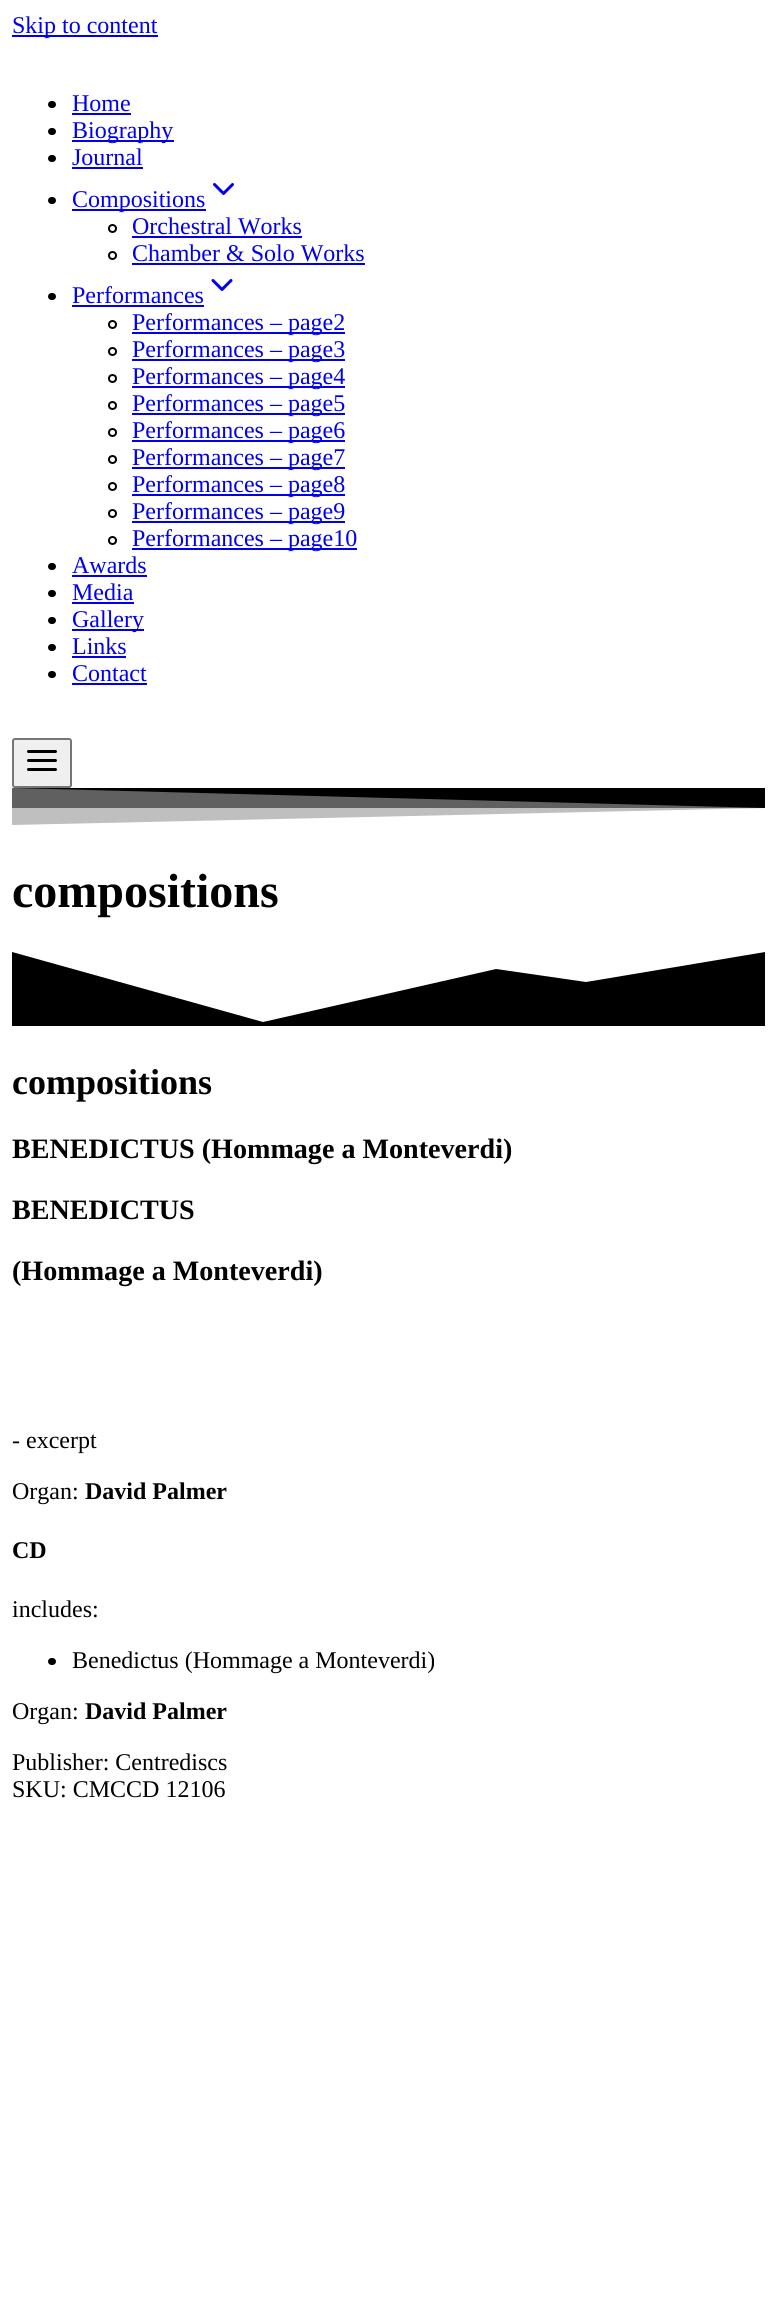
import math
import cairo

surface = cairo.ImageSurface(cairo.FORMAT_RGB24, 776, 2311)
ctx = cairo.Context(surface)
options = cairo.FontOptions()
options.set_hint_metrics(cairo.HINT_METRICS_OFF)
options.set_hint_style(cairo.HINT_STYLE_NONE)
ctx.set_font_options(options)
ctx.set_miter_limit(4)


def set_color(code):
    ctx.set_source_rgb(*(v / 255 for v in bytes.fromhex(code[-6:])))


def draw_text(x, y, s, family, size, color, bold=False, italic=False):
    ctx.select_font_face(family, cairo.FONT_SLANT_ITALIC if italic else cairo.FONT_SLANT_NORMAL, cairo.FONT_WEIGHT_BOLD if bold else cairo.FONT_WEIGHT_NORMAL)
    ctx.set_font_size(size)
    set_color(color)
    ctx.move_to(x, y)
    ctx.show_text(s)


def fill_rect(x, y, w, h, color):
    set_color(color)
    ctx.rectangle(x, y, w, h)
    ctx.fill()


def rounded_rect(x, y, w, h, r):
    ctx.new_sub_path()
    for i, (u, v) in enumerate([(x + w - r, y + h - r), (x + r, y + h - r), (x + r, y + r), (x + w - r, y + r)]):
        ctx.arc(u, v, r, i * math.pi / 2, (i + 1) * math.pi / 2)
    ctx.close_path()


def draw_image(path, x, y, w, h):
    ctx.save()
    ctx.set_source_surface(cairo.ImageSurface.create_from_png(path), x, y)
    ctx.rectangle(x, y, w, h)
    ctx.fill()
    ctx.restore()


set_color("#ffffff")
ctx.paint()
fill_rect(12, 788, 752, 20, "#808080")
fill_rect(12, 35, 146, 2, "#0000ee")
draw_text(12, 33, "Skip to content", "Liberation Serif", 24, "#0000ee")
set_color("#000000")
rounded_rect(48, 101, 8, 7, 3.5)
ctx.fill()
draw_text(72, 111, "Home", "Liberation Serif", 24, "#0000ee")
fill_rect(72, 113, 59, 2, "#0000ee")
set_color("#000000")
rounded_rect(48, 128, 8, 7, 3.5)
ctx.fill()
fill_rect(72, 140, 102, 2, "#0000ee")
draw_text(72, 138, "Biography", "Liberation Serif", 24, "#0000ee")
set_color("#000000")
rounded_rect(48, 155, 8, 7, 3.5)
ctx.fill()
draw_text(72, 165, "Journal", "Liberation Serif", 24, "#0000ee")
fill_rect(72, 167, 71, 2, "#0000ee")
draw_image("assets/img1.png", 213, 183, 21, 12)
set_color("#000000")
rounded_rect(48, 197, 8, 7, 3.5)
ctx.fill()
fill_rect(72, 209, 134, 2, "#0000ee")
draw_text(72, 207, "Compositions", "Liberation Serif", 24, "#0000ee")
ctx.new_path()
ctx.arc(112.5, 228.5, 3.5, 0, 2 * math.pi)
set_color("#000000")
ctx.stroke()
draw_text(132, 234, "Orchestral Works", "Liberation Serif", 24, "#0000ee")
fill_rect(132, 236, 170, 2, "#0000ee")
ctx.new_path()
ctx.arc(112.5, 255.5, 3.5, 0, 2 * math.pi)
set_color("#000000")
ctx.stroke()
draw_text(132, 261, "Chamber & Solo Works", "Liberation Serif", 24, "#0000ee")
fill_rect(132, 263, 233, 2, "#0000ee")
set_color("#000000")
rounded_rect(48, 293, 8, 7, 3.5)
ctx.fill()
draw_text(72, 303, "Performances", "Liberation Serif", 24, "#0000ee")
fill_rect(72, 305, 132, 2, "#0000ee")
draw_image("assets/img2.png", 211, 279, 22, 12)
ctx.arc(112.5, 324.5, 3.5, 0, 2 * math.pi)
set_color("#000000")
ctx.stroke()
fill_rect(132, 332, 213, 2, "#0000ee")
draw_text(132, 330, "Performances – page2", "Liberation Serif", 24, "#0000ee")
ctx.new_path()
ctx.arc(112.5, 351.5, 3.5, 0, 2 * math.pi)
set_color("#000000")
ctx.stroke()
fill_rect(132, 359, 213, 2, "#0000ee")
draw_text(132, 357, "Performances – page3", "Liberation Serif", 24, "#0000ee")
ctx.new_path()
ctx.arc(112.5, 378.5, 3.5, 0, 2 * math.pi)
set_color("#000000")
ctx.stroke()
fill_rect(132, 386, 213, 2, "#0000ee")
draw_text(132, 384, "Performances – page4", "Liberation Serif", 24, "#0000ee")
ctx.new_path()
ctx.arc(112.5, 405.5, 3.5, 0, 2 * math.pi)
set_color("#000000")
ctx.stroke()
fill_rect(132, 413, 213, 2, "#0000ee")
draw_text(132, 411, "Performances – page5", "Liberation Serif", 24, "#0000ee")
ctx.new_path()
ctx.arc(112.5, 432.5, 3.5, 0, 2 * math.pi)
set_color("#000000")
ctx.stroke()
fill_rect(132, 440, 213, 2, "#0000ee")
draw_text(132, 438, "Performances – page6", "Liberation Serif", 24, "#0000ee")
ctx.new_path()
ctx.arc(112.5, 459.5, 3.5, 0, 2 * math.pi)
set_color("#000000")
ctx.stroke()
fill_rect(132, 467, 213, 2, "#0000ee")
draw_text(132, 465, "Performances – page7", "Liberation Serif", 24, "#0000ee")
ctx.new_path()
ctx.arc(112.5, 486.5, 3.5, 0, 2 * math.pi)
set_color("#000000")
ctx.stroke()
fill_rect(132, 494, 213, 2, "#0000ee")
draw_text(132, 492, "Performances – page8", "Liberation Serif", 24, "#0000ee")
ctx.new_path()
ctx.arc(112.5, 513.5, 3.5, 0, 2 * math.pi)
set_color("#000000")
ctx.stroke()
fill_rect(132, 521, 213, 2, "#0000ee")
draw_text(132, 519, "Performances – page9", "Liberation Serif", 24, "#0000ee")
ctx.new_path()
ctx.arc(112.5, 540.5, 3.5, 0, 2 * math.pi)
set_color("#000000")
ctx.stroke()
fill_rect(132, 548, 225, 2, "#0000ee")
draw_text(132, 546, "Performances – page10", "Liberation Serif", 24, "#0000ee")
set_color("#000000")
rounded_rect(48, 563, 8, 7, 3.5)
ctx.fill()
draw_text(72, 573, "Awards", "Liberation Serif", 24, "#0000ee")
fill_rect(72, 575, 75, 2, "#0000ee")
set_color("#000000")
rounded_rect(48, 590, 8, 7, 3.5)
ctx.fill()
draw_text(72, 600, "Media", "Liberation Serif", 24, "#0000ee")
fill_rect(72, 602, 62, 2, "#0000ee")
set_color("#000000")
rounded_rect(48, 617, 8, 7, 3.5)
ctx.fill()
fill_rect(72, 629, 72, 2, "#0000ee")
draw_text(72, 627, "Gallery", "Liberation Serif", 24, "#0000ee")
set_color("#000000")
rounded_rect(48, 644, 8, 7, 3.5)
ctx.fill()
draw_text(72, 654, "Links", "Liberation Serif", 24, "#0000ee")
fill_rect(72, 656, 54, 2, "#0000ee")
set_color("#000000")
rounded_rect(48, 671, 8, 7, 3.5)
ctx.fill()
draw_text(72, 681, "Contact", "Liberation Serif", 24, "#0000ee")
fill_rect(72, 683, 75, 2, "#0000ee")
set_color("#efefef")
rounded_rect(13, 739, 58, 48, 2)
ctx.fill_preserve()
set_color("#767676")
ctx.stroke()
draw_image("assets/img3.png", 27, 750, 30, 21)
set_color("#000000")
ctx.new_path()
ctx.move_to(12, 788)
ctx.line_to(765, 788)
ctx.line_to(765, 808)
ctx.close_path()
ctx.fill()
ctx.set_source_rgba(0, 0, 0, 0.25)
ctx.new_path()
ctx.move_to(765, 788)
ctx.line_to(12, 788)
ctx.line_to(12, 825)
ctx.line_to(765, 808)
ctx.close_path()
ctx.fill()
draw_text(12, 907, "compositions", "Liberation Serif", 48, "#000000", bold=True)
ctx.new_path()
ctx.move_to(586, 982)
ctx.line_to(496, 969)
ctx.line_to(263, 1022)
ctx.line_to(12, 952)
ctx.line_to(12, 1026)
ctx.line_to(765, 1026)
ctx.line_to(765, 952)
ctx.fill()
draw_text(12, 1094, "compositions", "Liberation Serif", 36, "#000000", bold=True)
draw_text(12, 1158, "BENEDICTUS (Hommage a Monteverdi)", "Liberation Serif", 28.1, "#000000", bold=True)
draw_text(12, 1219, "BENEDICTUS", "Liberation Serif", 28.1, "#000000", bold=True)
draw_text(12, 1280, "(Hommage a Monteverdi)", "Liberation Serif", 28.1, "#000000", bold=True)
draw_text(12, 1448, "- excerpt", "Liberation Serif", 24, "#000000")
draw_text(12, 1499, "Organ:", "Liberation Serif", 24, "#000000")
draw_text(85, 1499, "David Palmer", "Liberation Serif", 24, "#000000", bold=True)
draw_text(12, 1558, "CD", "Liberation Serif", 24, "#000000", bold=True)
draw_text(12, 1617, "includes:", "Liberation Serif", 24, "#000000")
rounded_rect(48, 1658, 8, 7, 3.5)
ctx.fill()
draw_text(72, 1668, "Benedictus (Hommage a Monteverdi)", "Liberation Serif", 24, "#000000")
draw_text(12, 1719, "Organ:", "Liberation Serif", 24, "#000000")
draw_text(85, 1719, "David Palmer", "Liberation Serif", 24, "#000000", bold=True)
draw_text(12, 1770, "Publisher: Centrediscs", "Liberation Serif", 24, "#000000")
draw_text(12, 1797, "SKU: CMCCD 12106", "Liberation Serif", 24, "#000000")
surface.write_to_png("output.png")
